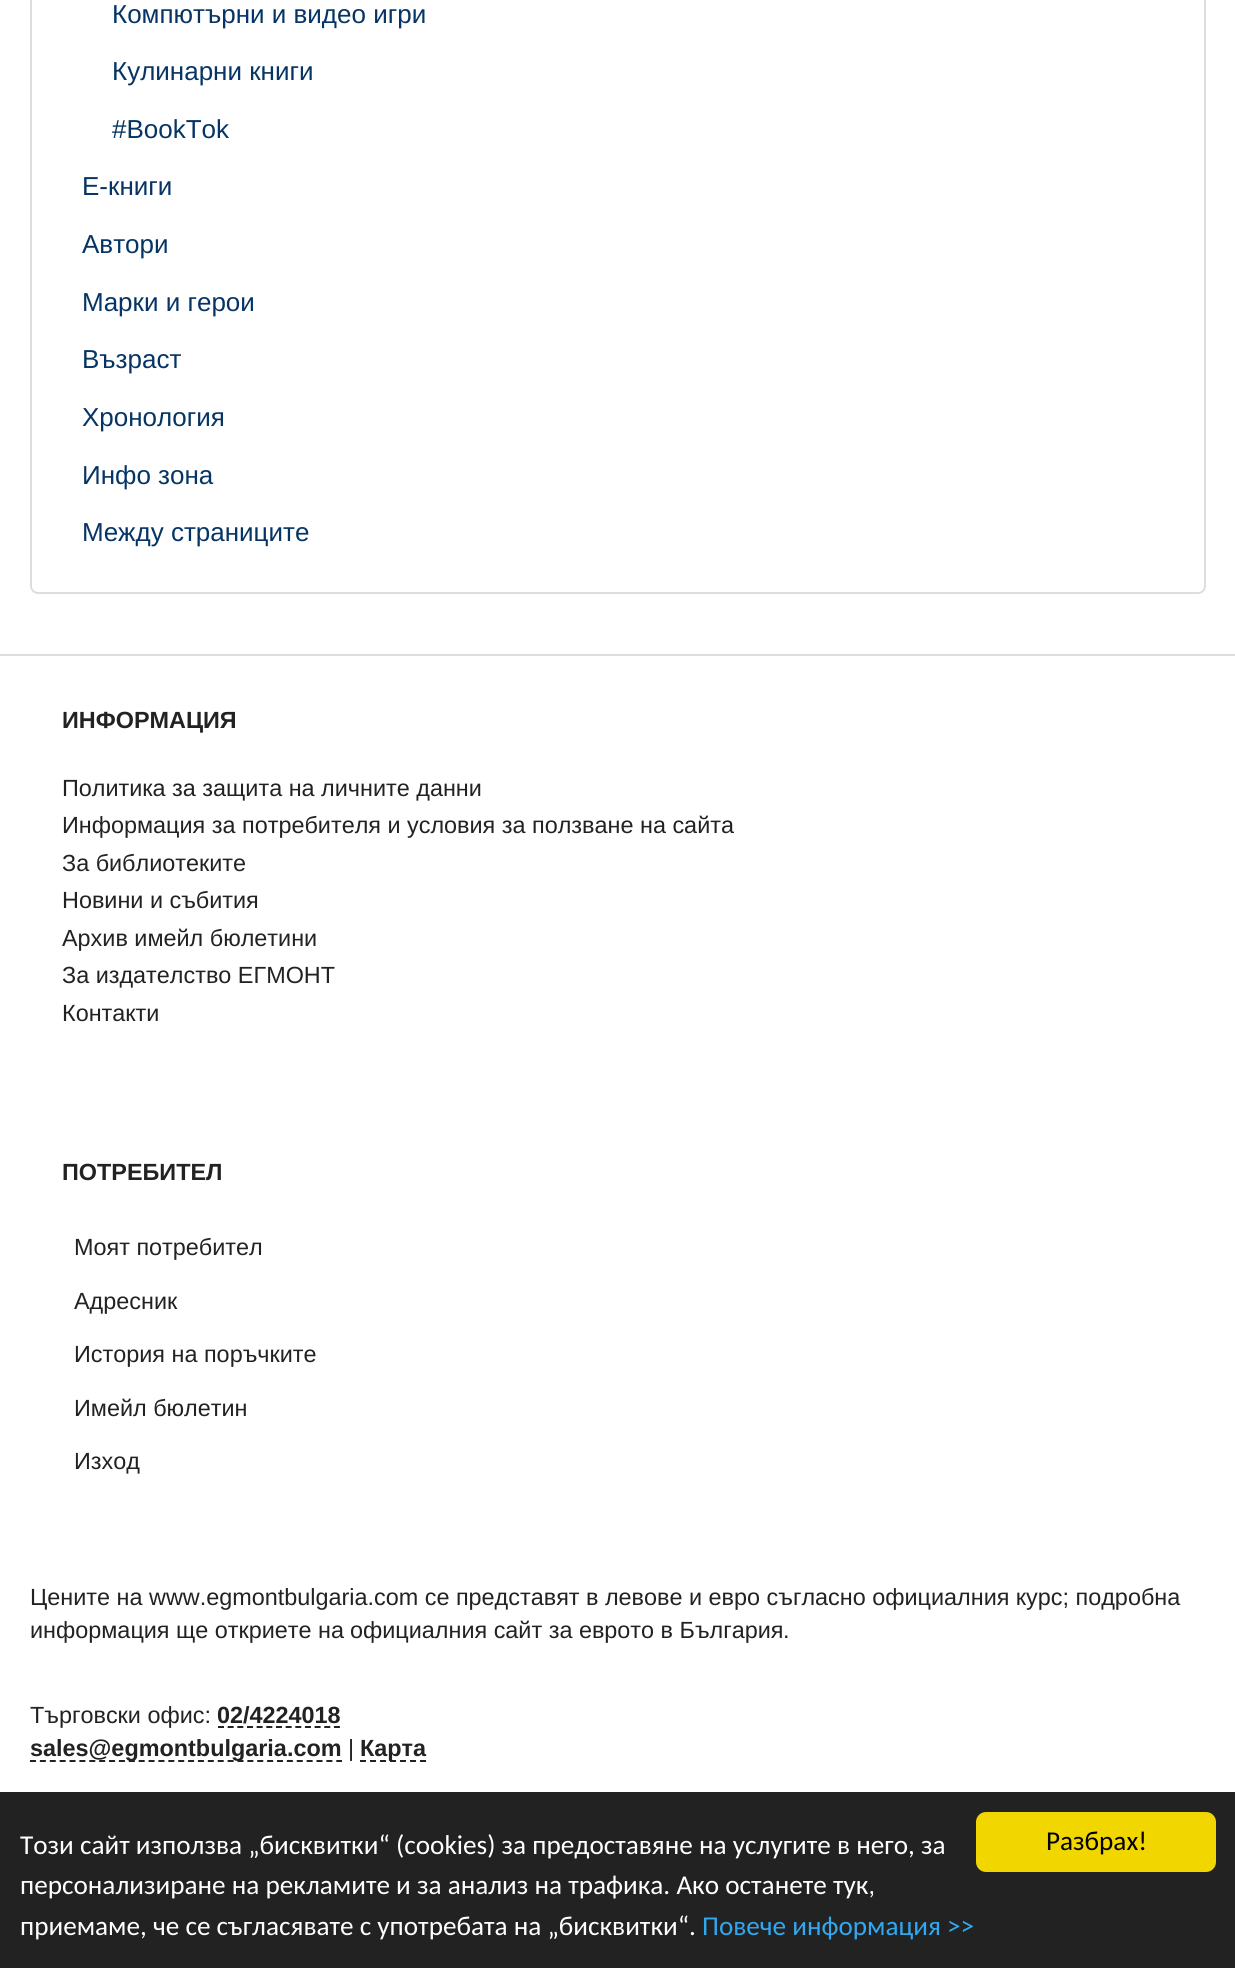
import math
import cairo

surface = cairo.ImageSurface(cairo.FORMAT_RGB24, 1235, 1968)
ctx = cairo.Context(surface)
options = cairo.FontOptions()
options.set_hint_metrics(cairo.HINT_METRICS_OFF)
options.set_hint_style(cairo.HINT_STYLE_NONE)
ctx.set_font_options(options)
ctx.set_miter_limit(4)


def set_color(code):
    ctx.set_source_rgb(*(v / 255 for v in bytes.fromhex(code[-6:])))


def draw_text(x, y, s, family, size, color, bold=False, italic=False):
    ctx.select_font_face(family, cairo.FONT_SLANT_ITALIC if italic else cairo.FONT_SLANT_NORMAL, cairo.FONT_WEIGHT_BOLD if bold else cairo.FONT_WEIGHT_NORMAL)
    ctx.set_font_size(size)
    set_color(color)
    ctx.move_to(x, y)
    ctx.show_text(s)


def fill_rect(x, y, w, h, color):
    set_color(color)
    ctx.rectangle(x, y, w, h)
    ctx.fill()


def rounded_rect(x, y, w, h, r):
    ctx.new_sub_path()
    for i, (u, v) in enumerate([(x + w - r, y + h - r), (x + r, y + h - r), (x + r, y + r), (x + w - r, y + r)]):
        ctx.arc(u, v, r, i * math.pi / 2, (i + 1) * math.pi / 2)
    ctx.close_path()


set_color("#ffffff")
ctx.paint()
rounded_rect(31, -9, 1174, 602, 7)
set_color("#dddddd")
ctx.stroke()
draw_text(112, 23, "Компютърни и видео игри", "Liberation Sans", 26, "#063565")
draw_text(112, 80, "Кулинарни книги", "Liberation Sans", 26, "#063565")
draw_text(112, 138, "#BookTok", "Liberation Sans", 26, "#063565")
draw_text(82, 195, "Е-книги", "Liberation Sans", 26, "#063565")
draw_text(82, 253, "Автори", "Liberation Sans", 26, "#063565")
draw_text(82, 311, "Марки и герои", "Liberation Sans", 26, "#063565")
draw_text(82, 368, "Възраст", "Liberation Sans", 26, "#063565")
draw_text(82, 426, "Хронология", "Liberation Sans", 26, "#063565")
draw_text(82, 484, "Инфо зона", "Liberation Sans", 26, "#063565")
draw_text(82, 541, "Между страниците", "Liberation Sans", 26, "#063565")
fill_rect(0, 654, 1235, 2, "#dddddd")
draw_text(62, 728, "ИНФОРМАЦИЯ", "Liberation Sans", 23.4, "#222222", bold=True)
draw_text(62, 796, "Политика за защита на личните данни", "Liberation Sans", 23.4, "#222222")
draw_text(62, 833, "Информация за потребителя и условия за ползване на сайта", "Liberation Sans", 23.4, "#222222")
draw_text(62, 871, "За библиотеките", "Liberation Sans", 23.4, "#222222")
draw_text(62, 908, "Новини и събития", "Liberation Sans", 23.4, "#222222")
draw_text(62, 946, "Архив имейл бюлетини", "Liberation Sans", 23.4, "#222222")
draw_text(62, 983, "За издателство ЕГМОНТ", "Liberation Sans", 23.4, "#222222")
draw_text(62, 1021, "Контакти", "Liberation Sans", 23.4, "#222222")
draw_text(62, 1180, "ПОТРЕБИТЕЛ", "Liberation Sans", 23.4, "#222222", bold=True)
draw_text(74, 1255, "Моят потребител", "Liberation Sans", 23.4, "#222222")
draw_text(74, 1309, "Адресник", "Liberation Sans", 23.4, "#222222")
draw_text(74, 1362, "История на поръчките", "Liberation Sans", 23.4, "#222222")
draw_text(74, 1416, "Имейл бюлетин", "Liberation Sans", 23.4, "#222222")
draw_text(74, 1469, "Изход", "Liberation Sans", 23.4, "#222222")
draw_text(30, 1605, "Цените на www.egmontbulgaria.com се представят в левове и евро съгласно официалния курс; подробна", "Liberation Sans", 23.4, "#222222")
draw_text(30, 1638, "информация ще откриете на", "Liberation Sans", 23.4, "#222222")
draw_text(350, 1638, "официалния сайт за еврото в България", "Liberation Sans", 23.4, "#222222")
draw_text(783, 1638, ".", "Liberation Sans", 23.4, "#222222")
draw_text(30, 1723, "Търговски офис:", "Liberation Sans", 23.4, "#222222")
draw_text(217, 1723, "02/4224018", "Liberation Sans", 23.4, "#222222", bold=True)
ctx.new_path()
ctx.move_to(218, 1727)
ctx.line_to(340, 1727)
ctx.set_dash([6, 3.66])
ctx.stroke()
ctx.new_path()
ctx.move_to(30, 1761)
ctx.line_to(342, 1761)
ctx.set_dash([6, 3.88])
ctx.stroke()
draw_text(30, 1756, "sales@egmontbulgaria.com", "Liberation Sans", 23.4, "#222222", bold=True)
draw_text(348, 1756, "|", "Liberation Sans", 23.4, "#222222")
ctx.new_path()
ctx.move_to(360, 1761)
ctx.line_to(426, 1761)
ctx.set_dash([6, 4])
ctx.stroke()
draw_text(360, 1756, "Карта", "Liberation Sans", 23.4, "#222222", bold=True)
fill_rect(0, 1792, 1235, 176, "#222222")
draw_text(20, 1854, "Този сайт използва „бисквитки“ (cookies) за предоставяне на услугите в него, за", "Carlito", 27.2, "#ffffff")
draw_text(20, 1894, "персонализиране на рекламите и за анализ на трафика. Ако останете тук,", "Carlito", 27.2, "#ffffff")
draw_text(20, 1935, "приемаме, че се съгласявате с употребата на „бисквитки“.", "Carlito", 27.2, "#ffffff")
draw_text(702, 1935, "Повече информация >>", "Carlito", 27.2, "#31a8f0")
set_color("#f1d600")
rounded_rect(976, 1812, 240, 60, 10)
ctx.fill()
draw_text(1046, 1850, "Разбрах!", "Carlito", 27.2, "#000000")
surface.write_to_png("output.png")
